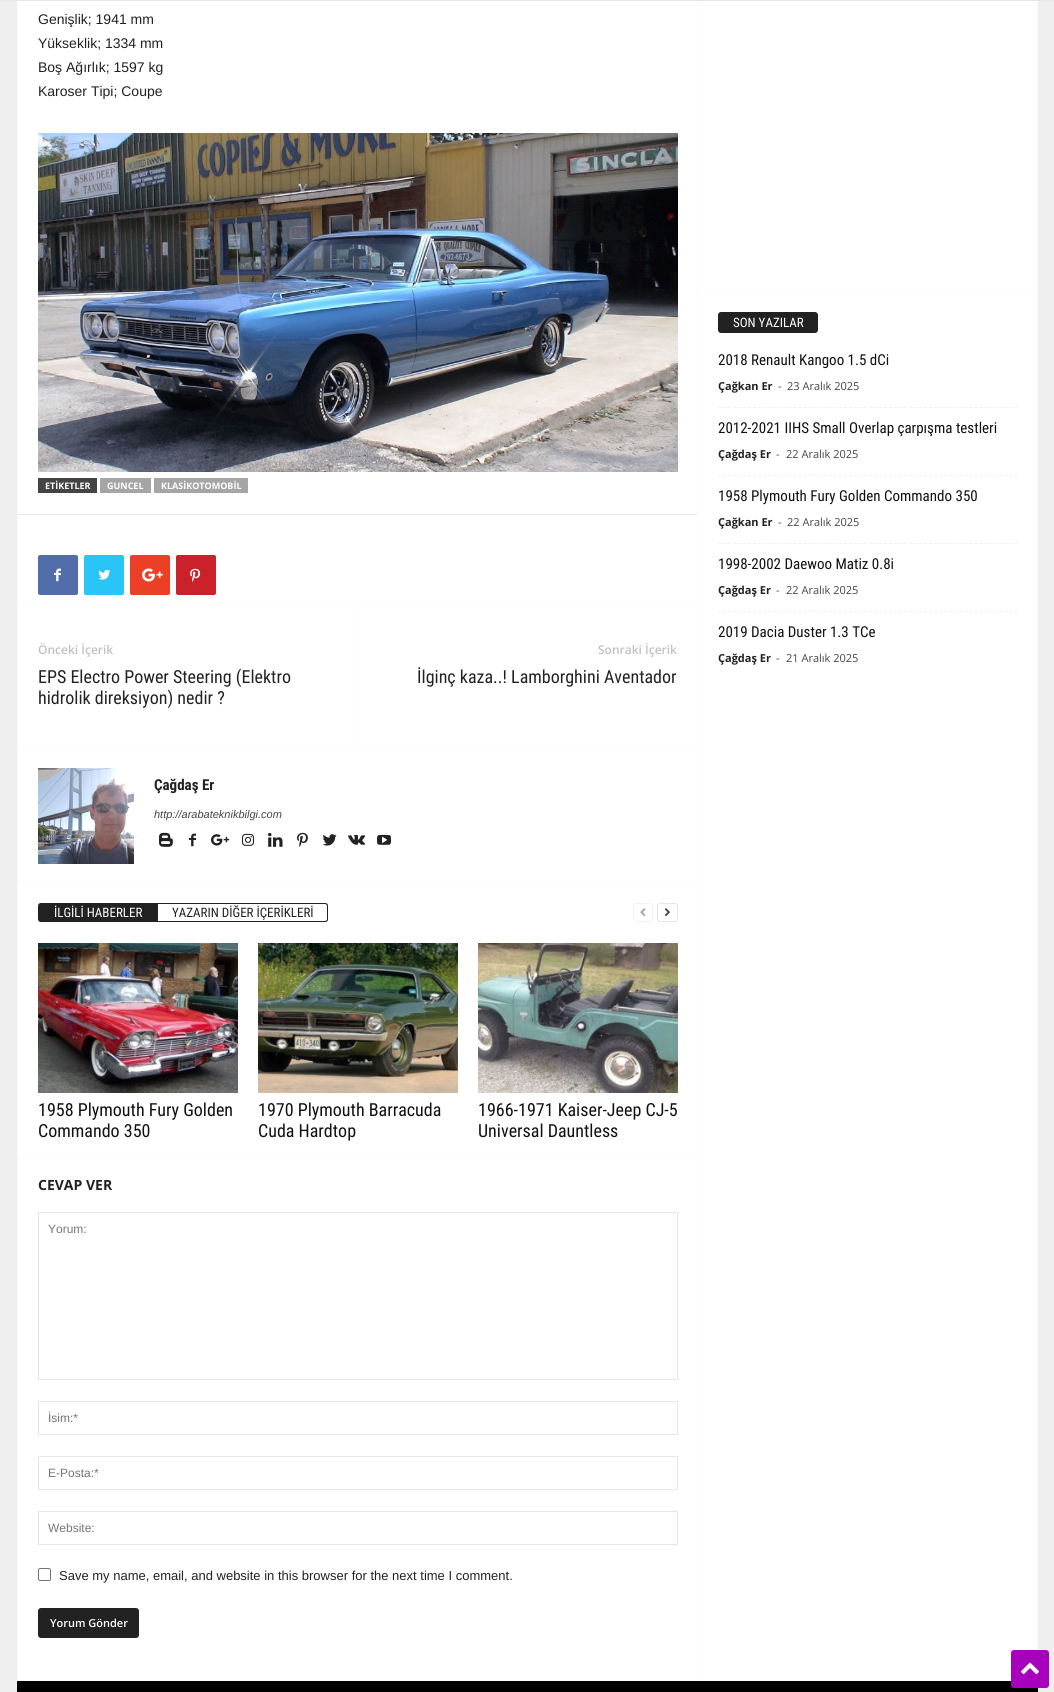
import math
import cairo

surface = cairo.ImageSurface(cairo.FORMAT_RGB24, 1054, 1692)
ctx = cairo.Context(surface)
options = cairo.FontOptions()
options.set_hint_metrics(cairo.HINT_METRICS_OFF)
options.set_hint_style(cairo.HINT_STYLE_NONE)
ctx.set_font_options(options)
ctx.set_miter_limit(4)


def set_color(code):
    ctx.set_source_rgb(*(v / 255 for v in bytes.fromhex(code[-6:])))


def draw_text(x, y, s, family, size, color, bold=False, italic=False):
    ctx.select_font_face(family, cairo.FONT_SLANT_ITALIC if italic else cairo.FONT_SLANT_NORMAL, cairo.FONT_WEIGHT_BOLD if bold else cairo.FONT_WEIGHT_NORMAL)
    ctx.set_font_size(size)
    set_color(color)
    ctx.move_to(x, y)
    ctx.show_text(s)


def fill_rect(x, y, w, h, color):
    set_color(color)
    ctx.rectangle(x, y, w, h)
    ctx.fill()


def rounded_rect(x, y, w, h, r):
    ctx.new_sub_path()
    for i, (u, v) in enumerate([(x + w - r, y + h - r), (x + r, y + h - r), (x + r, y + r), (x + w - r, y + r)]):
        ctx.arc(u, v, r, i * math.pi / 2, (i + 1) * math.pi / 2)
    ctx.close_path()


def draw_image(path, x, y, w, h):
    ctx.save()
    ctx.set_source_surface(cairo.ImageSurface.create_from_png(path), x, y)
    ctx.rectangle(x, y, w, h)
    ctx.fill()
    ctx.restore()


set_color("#efefef")
ctx.paint()
fill_rect(17, 0, 1, 1680, "#f9f9f9")
fill_rect(18, 1, 1019, 1679, "#ffffff")
fill_rect(697, 0, 1, 1680, "#fcfcfc")
fill_rect(1037, 0, 1, 1650, "#fcfcfc")
fill_rect(0, 0, 1054, 1, "#e6e6e6")
fill_rect(17, 1680, 994, 1, "#fcfcfc")
draw_text(38, 24, "Genişlik; 1941 mm", "Liberation Sans", 14, "#222222")
draw_text(38, 48, "Yükseklik; 1334 mm", "Liberation Sans", 14, "#222222")
draw_text(38, 72, "Boş Ağırlık; 1597 kg", "Liberation Sans", 14, "#222222")
draw_text(38, 96, "Karoser Tipi; Coupe", "Liberation Sans", 14, "#222222")
draw_image("assets/img1.png", 38, 133, 640, 339)
fill_rect(38, 478, 59, 15, "#444444")
draw_text(45, 489, "ETİKETLER", "Open Sans", 9, "#ffffff", bold=True)
fill_rect(100, 478, 51, 15, "#a5a5a5")
draw_text(107, 489, "GUNCEL", "Open Sans", 9, "#ffffff", bold=True)
fill_rect(154, 478, 94, 15, "#a5a5a5")
draw_text(161, 489, "KLASİKOTOMOBİL", "Open Sans", 9, "#ffffff", bold=True)
fill_rect(18, 514, 679, 1, "#e6e6e6")
set_color("#516eab")
rounded_rect(38, 555, 40, 40, 2)
ctx.fill()
draw_image("assets/img2.png", 54, 568, 7, 14)
set_color("#29c5f6")
rounded_rect(84, 555, 40, 40, 2)
ctx.fill()
draw_image("assets/img3.png", 98, 569, 13, 11)
set_color("#eb4026")
rounded_rect(130, 555, 40, 40, 2)
ctx.fill()
draw_image("assets/img4.png", 142, 568, 21, 14)
set_color("#ca212a")
rounded_rect(176, 555, 40, 40, 2)
ctx.fill()
draw_image("assets/img5.png", 190, 568, 11, 14)
fill_rect(18, 605, 679, 1, "#fcfcfc")
draw_text(38, 654, "Önceki İçerik", "Open Sans SemiBold", 12, "#c1c1c1")
draw_text(38, 683, "EPS Electro Power Steering (Elektro", "Roboto Condensed", 18, "#222222")
draw_text(38, 704, "hidrolik direksiyon) nedir ?", "Roboto Condensed", 18, "#222222")
fill_rect(357, 606, 1, 140, "#fcfcfc")
draw_text(598, 654, "Sonraki İçerik", "Open Sans SemiBold", 12, "#c1c1c1")
draw_text(417, 683, "İlginç kaza..! Lamborghini Aventador", "Roboto Condensed", 18, "#222222")
fill_rect(18, 746, 679, 1, "#fcfcfc")
draw_image("assets/img6.png", 38, 768, 96, 96)
draw_text(154, 790, "Çağdaş Er", "Roboto Condensed", 15, "#222222", bold=True)
draw_text(154, 818, "http://arabateknikbilgi.com", "Liberation Sans", 11, "#444444", italic=True)
draw_image("assets/img7.png", 159, 832, 14, 15)
draw_image("assets/img8.png", 189, 833, 7, 14)
draw_image("assets/img9.png", 211, 834, 19, 12)
draw_image("assets/img10.png", 242, 833, 12, 13)
draw_image("assets/img11.png", 268, 833, 15, 14)
draw_image("assets/img12.png", 297, 832, 11, 15)
draw_image("assets/img13.png", 322, 834, 15, 12)
draw_image("assets/img14.png", 348, 835, 17, 10)
draw_image("assets/img15.png", 377, 834, 14, 11)
fill_rect(18, 881, 679, 1, "#fcfcfc")
set_color("#222222")
ctx.new_path()
ctx.move_to(41, 903.5)
ctx.line_to(157.5, 903.5)
ctx.line_to(157.5, 921.5)
ctx.line_to(41, 921.5)
ctx.curve_to(39.5, 921.5, 38.5, 920.5, 38.5, 919)
ctx.line_to(38.5, 906)
ctx.curve_to(38.5, 904.5, 39.5, 903.5, 41, 903.5)
ctx.close_path()
ctx.fill_preserve()
ctx.set_line_width(1)
ctx.stroke()
draw_text(54, 917, "İLGİLİ HABERLER", "Roboto Condensed", 13, "#ffffff")
set_color("#222222")
ctx.set_fill_rule(cairo.FILL_RULE_EVEN_ODD)
ctx.new_path()
ctx.move_to(158, 903)
ctx.line_to(325, 903)
ctx.curve_to(327, 903, 328, 904, 328, 906)
ctx.line_to(328, 919)
ctx.curve_to(328, 921, 327, 922, 325, 922)
ctx.line_to(158, 922)
ctx.close_path()
ctx.move_to(158, 904)
ctx.line_to(325, 904)
ctx.curve_to(326, 904, 327, 905, 327, 906)
ctx.line_to(327, 919)
ctx.curve_to(327, 920, 326, 921, 325, 921)
ctx.line_to(158, 921)
ctx.close_path()
ctx.fill()
draw_text(172, 917, "YAZARIN DİĞER İÇERİKLERİ", "Roboto Condensed", 13, "#222222")
rounded_rect(633.5, 903.5, 19, 18, 2.5)
set_color("#f3f3f3")
ctx.stroke()
draw_image("assets/img16.png", 640, 908, 6, 9)
rounded_rect(657.5, 903.5, 20, 18, 2.5)
set_color("#e6e6e6")
ctx.stroke()
draw_image("assets/img17.png", 664, 908, 6, 9)
draw_image("assets/img18.png", 38, 943, 200, 150)
draw_text(38, 1116, "1958 Plymouth Fury Golden", "Roboto Condensed", 18, "#111111")
draw_text(38, 1137, "Commando 350", "Roboto Condensed", 18, "#111111")
draw_image("assets/img19.png", 258, 943, 200, 150)
draw_text(258, 1116, "1970 Plymouth Barracuda", "Roboto Condensed", 18, "#111111")
draw_text(258, 1137, "Cuda Hardtop", "Roboto Condensed", 18, "#111111")
draw_image("assets/img20.png", 478, 943, 200, 150)
draw_text(478, 1116, "1966-1971 Kaiser-Jeep CJ-5", "Roboto Condensed", 18, "#111111")
draw_text(478, 1137, "Universal Dauntless", "Roboto Condensed", 18, "#111111")
fill_rect(18, 1158, 679, 1, "#fcfcfc")
draw_text(38, 1190, "CEVAP VER", "Open Sans", 14, "#222222", bold=True)
ctx.rectangle(38.5, 1212.5, 639, 167)
set_color("#e6e6e6")
ctx.stroke()
draw_text(48, 1233, "Yorum:", "Liberation Sans", 12, "#757575")
ctx.rectangle(38.5, 1401.5, 639, 33)
set_color("#e6e6e6")
ctx.stroke()
draw_text(48, 1422, "İsim:*", "Liberation Sans", 12, "#757575")
ctx.rectangle(38.5, 1456.5, 639, 33)
set_color("#e6e6e6")
ctx.stroke()
draw_text(48, 1477, "E-Posta:*", "Liberation Sans", 12, "#757575")
ctx.rectangle(38.5, 1511.5, 639, 33)
set_color("#e6e6e6")
ctx.stroke()
draw_text(48, 1532, "Website:", "Liberation Sans", 12, "#757575")
rounded_rect(38.5, 1568.5, 12, 12, 1.5)
set_color("#767676")
ctx.stroke()
draw_text(59, 1580, "Save my name, email, and website in this browser for the next time I comment.", "Liberation Sans", 13, "#222222")
rounded_rect(38, 1608, 101, 30, 3)
ctx.fill()
draw_text(50, 1627, "Yorum Gönder", "Open Sans SemiBold", 11, "#ffffff")
fill_rect(698, 292, 339, 1, "#fcfcfc")
set_color("#222222")
rounded_rect(718, 312, 100, 21, 3)
ctx.fill()
draw_text(733, 327, "SON YAZILAR", "Roboto Condensed", 13, "#ffffff")
ctx.new_path()
ctx.move_to(718, 407.5)
ctx.line_to(1018, 407.5)
set_color("#f1f1f1")
ctx.set_dash([3, 2.03])
ctx.stroke()
draw_text(718, 365, "2018 Renault Kangoo 1.5 dCi", "Roboto Condensed", 15, "#111111")
draw_text(718, 390, "Çağkan Er", "Open Sans", 11, "#222222", bold=True)
draw_text(778, 390, "-", "Open Sans", 11, "#444444")
draw_text(787, 390, "23 Aralık 2025", "Open Sans", 11, "#444444")
ctx.new_path()
ctx.move_to(718, 475.5)
ctx.line_to(1018, 475.5)
set_color("#f1f1f1")
ctx.stroke()
draw_text(718, 433, "2012-2021 IIHS Small Overlap çarpışma testleri", "Roboto Condensed", 15, "#111111")
draw_text(718, 458, "Çağdaş Er", "Open Sans", 11, "#222222", bold=True)
draw_text(776, 458, "-", "Open Sans", 11, "#444444")
draw_text(786, 458, "22 Aralık 2025", "Open Sans", 11, "#444444")
ctx.new_path()
ctx.move_to(718, 543.5)
ctx.line_to(1018, 543.5)
set_color("#f1f1f1")
ctx.stroke()
draw_text(718, 501, "1958 Plymouth Fury Golden Commando 350", "Roboto Condensed", 15, "#111111")
draw_text(718, 526, "Çağkan Er", "Open Sans", 11, "#222222", bold=True)
draw_text(778, 526, "-", "Open Sans", 11, "#444444")
draw_text(787, 526, "22 Aralık 2025", "Open Sans", 11, "#444444")
ctx.new_path()
ctx.move_to(718, 611.5)
ctx.line_to(1018, 611.5)
set_color("#f1f1f1")
ctx.stroke()
draw_text(718, 569, "1998-2002 Daewoo Matiz 0.8i", "Roboto Condensed", 15, "#111111")
draw_text(718, 594, "Çağdaş Er", "Open Sans", 11, "#222222", bold=True)
draw_text(776, 594, "-", "Open Sans", 11, "#444444")
draw_text(786, 594, "22 Aralık 2025", "Open Sans", 11, "#444444")
draw_text(718, 637, "2019 Dacia Duster 1.3 TCe", "Roboto Condensed", 15, "#111111")
draw_text(718, 662, "Çağdaş Er", "Open Sans", 11, "#222222", bold=True)
draw_text(776, 662, "-", "Open Sans", 11, "#444444")
draw_text(786, 662, "21 Aralık 2025", "Open Sans", 11, "#444444")
fill_rect(17, 1681, 1021, 11, "#000000")
set_color("#a801be")
rounded_rect(1011, 1650, 38, 38, 3)
ctx.fill()
draw_image("assets/img21.png", 1021, 1662, 18, 13)
surface.write_to_png("output.png")
